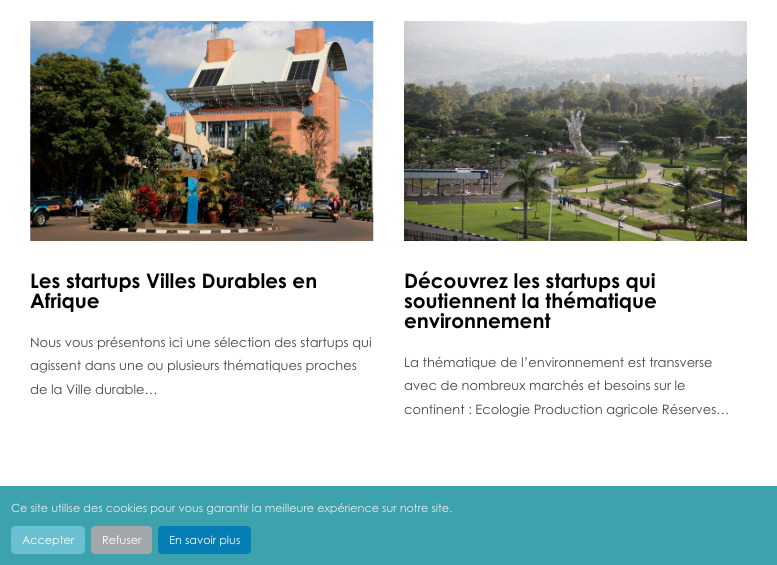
import math
import cairo

surface = cairo.ImageSurface(cairo.FORMAT_RGB24, 777, 565)
ctx = cairo.Context(surface)
options = cairo.FontOptions()
options.set_hint_metrics(cairo.HINT_METRICS_OFF)
options.set_hint_style(cairo.HINT_STYLE_NONE)
ctx.set_font_options(options)
ctx.set_miter_limit(4)


def set_color(code):
    ctx.set_source_rgb(*(v / 255 for v in bytes.fromhex(code[-6:])))


def draw_text(x, y, s, family, size, color, bold=False, italic=False):
    ctx.select_font_face(family, cairo.FONT_SLANT_ITALIC if italic else cairo.FONT_SLANT_NORMAL, cairo.FONT_WEIGHT_BOLD if bold else cairo.FONT_WEIGHT_NORMAL)
    ctx.set_font_size(size)
    set_color(color)
    ctx.move_to(x, y)
    ctx.show_text(s)


def fill_rect(x, y, w, h, color):
    set_color(color)
    ctx.rectangle(x, y, w, h)
    ctx.fill()


def rounded_rect(x, y, w, h, r):
    ctx.new_sub_path()
    for i, (u, v) in enumerate([(x + w - r, y + h - r), (x + r, y + h - r), (x + r, y + r), (x + w - r, y + r)]):
        ctx.arc(u, v, r, i * math.pi / 2, (i + 1) * math.pi / 2)
    ctx.close_path()


def draw_image(path, x, y, w, h):
    ctx.save()
    ctx.set_source_surface(cairo.ImageSurface.create_from_png(path), x, y)
    ctx.rectangle(x, y, w, h)
    ctx.fill()
    ctx.restore()


set_color("#ffffff")
ctx.paint()
draw_image("assets/img1.png", 30, 21, 344, 220)
draw_text(30, 288, "Les startups Villes Durables en", "Century Gothic", 20, "#000000", bold=True)
draw_text(30, 308, "Afrique", "Century Gothic", 20, "#000000", bold=True)
draw_text(30, 347, "Nous vous présentons ici une sélection des startups qui", "Century Gothic", 13, "#444444")
draw_text(30, 370, "agissent dans une ou plusieurs thématiques proches", "Century Gothic", 13, "#444444")
draw_text(30, 394, "de la Ville durable…", "Century Gothic", 13, "#444444")
draw_image("assets/img2.png", 404, 21, 343, 220)
draw_text(404, 288, "Découvrez les startups qui", "Century Gothic", 20, "#000000", bold=True)
draw_text(404, 308, "soutiennent la thématique", "Century Gothic", 20, "#000000", bold=True)
draw_text(404, 328, "environnement", "Century Gothic", 20, "#000000", bold=True)
draw_text(404, 367, "La thématique de l’environnement est transverse", "Century Gothic", 13, "#444444")
draw_text(404, 390, "avec de nombreux marchés et besoins sur le", "Century Gothic", 13, "#444444")
draw_text(404, 414, "continent : Ecologie Production agricole Réserves…", "Century Gothic", 13, "#444444")
fill_rect(0, 486, 777, 79, "#3ba2ae")
draw_text(11, 512, "Ce site utilise des cookies pour vous garantir la meilleure expérience sur notre site.", "Century Gothic", 11.2, "#eeeeee")
set_color("#6ac0d0")
rounded_rect(11, 526, 74, 28, 4)
ctx.fill()
draw_text(22, 544, "Accepter", "Century Gothic", 11.2, "#ffffff")
set_color("#a2a7ab")
rounded_rect(91, 526, 61, 28, 4)
ctx.fill()
draw_text(102, 544, "Refuser", "Century Gothic", 11.2, "#ffffff")
set_color("#057eb6")
rounded_rect(158, 526, 93, 28, 4)
ctx.fill()
draw_text(169, 544, "En savoir plus", "Century Gothic", 11.2, "#ffffff")
surface.write_to_png("output.png")
